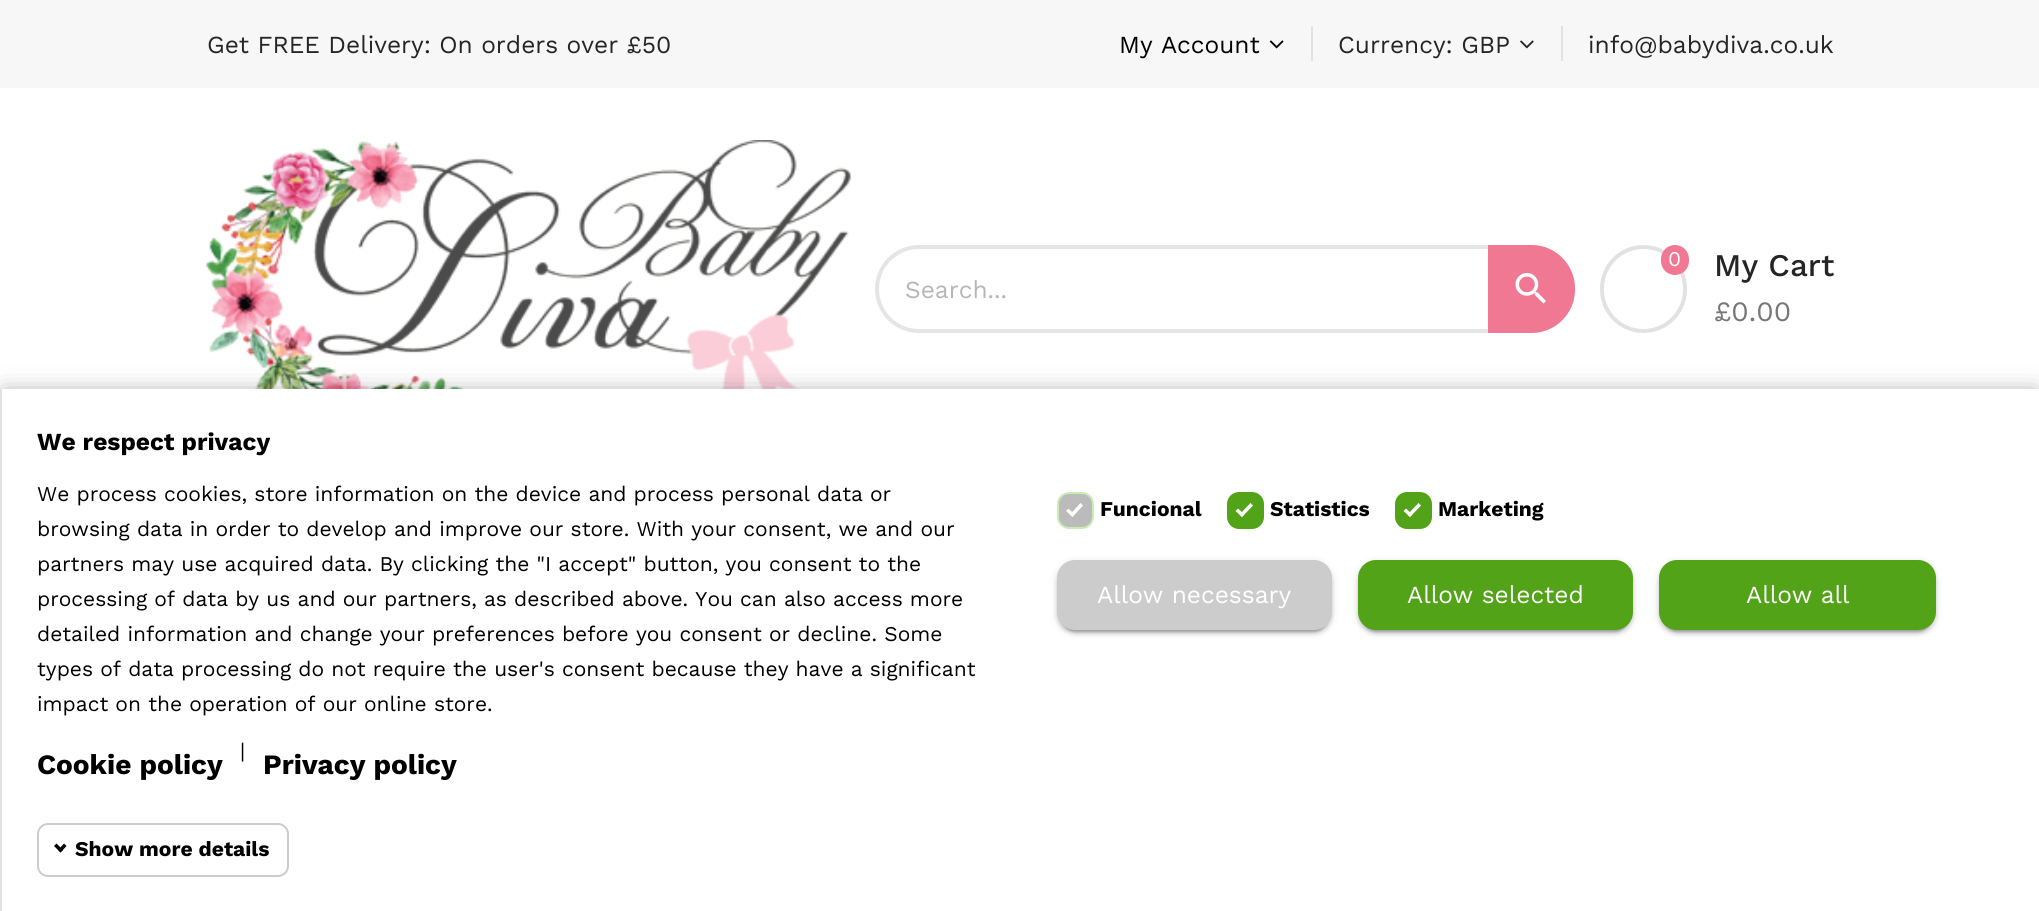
import math
import cairo

surface = cairo.ImageSurface(cairo.FORMAT_RGB24, 2039, 911)
ctx = cairo.Context(surface)
options = cairo.FontOptions()
options.set_hint_metrics(cairo.HINT_METRICS_OFF)
options.set_hint_style(cairo.HINT_STYLE_NONE)
ctx.set_font_options(options)
ctx.set_miter_limit(4)


def set_color(code):
    ctx.set_source_rgb(*(v / 255 for v in bytes.fromhex(code[-6:])))


def draw_text(x, y, s, family, size, color, bold=False, italic=False):
    ctx.select_font_face(family, cairo.FONT_SLANT_ITALIC if italic else cairo.FONT_SLANT_NORMAL, cairo.FONT_WEIGHT_BOLD if bold else cairo.FONT_WEIGHT_NORMAL)
    ctx.set_font_size(size)
    set_color(color)
    ctx.move_to(x, y)
    ctx.show_text(s)


def fill_rect(x, y, w, h, color):
    set_color(color)
    ctx.rectangle(x, y, w, h)
    ctx.fill()


def rounded_rect(x, y, w, h, r):
    ctx.new_sub_path()
    for i, (u, v) in enumerate([(x + w - r, y + h - r), (x + r, y + h - r), (x + r, y + r), (x + w - r, y + r)]):
        ctx.arc(u, v, r, i * math.pi / 2, (i + 1) * math.pi / 2)
    ctx.close_path()


def draw_shadow(x, y, w, h, r, blur, alpha):
    ctx.push_group_with_content(cairo.CONTENT_ALPHA)
    ctx.set_operator(cairo.OPERATOR_SOURCE)
    for i in range(15, -16, -2):
        e = blur * i / 6
        if min(w, h) + 2 * e > 0:
            ctx.set_source_rgba(0, 0, 0, alpha * math.erfc((i - 1) / 8.5) / 2)
            rounded_rect(x - e, y - e, w + 2 * e, h + 2 * e, max(0, min(r + e + blur * .6, min(w, h) / 2 + e)))
            ctx.fill()
    ctx.mask(ctx.pop_group())


def draw_image(path, x, y, w, h):
    ctx.save()
    ctx.set_source_surface(cairo.ImageSurface.create_from_png(path), x, y)
    ctx.rectangle(x, y, w, h)
    ctx.fill()
    ctx.restore()


set_color("#ffffff")
ctx.paint()
fill_rect(0, 0, 2039, 88, "#f7f7f7")
draw_text(207, 53, "Get FREE Delivery: On orders over £50", "Work Sans", 24.5, "#252525")
draw_text(1119, 53, "My Account", "Work Sans", 24.5, "#000000")
draw_image("assets/img1.png", 1269, 40, 15, 9)
fill_rect(1311, 26, 2, 35, "#e2e2e2")
draw_text(1338, 53, "Currency: GBP", "Work Sans", 24.5, "#252525")
draw_image("assets/img2.png", 1520, 40, 14, 9)
fill_rect(1561, 26, 2, 35, "#e2e2e2")
draw_text(1588, 53, "info@babydiva.co.uk", "Work Sans", 24.5, "#252525")
draw_image("assets/img3.png", 206, 140, 645, 249)
rounded_rect(877, 247, 696, 84, 42)
set_color("#e5e5e5")
ctx.set_line_width(4)
ctx.stroke()
draw_text(905, 298, "Search...", "Work Sans", 24.5, "#b6b6b6")
set_color("#f07893")
ctx.new_path()
ctx.move_to(1488, 245)
ctx.line_to(1531.5, 245)
ctx.curve_to(1555.5, 245, 1575, 264.5, 1575, 288.5)
ctx.line_to(1575, 289.5)
ctx.curve_to(1575, 313.5, 1555.5, 333, 1531.5, 333)
ctx.line_to(1488, 333)
ctx.close_path()
ctx.fill()
draw_image("assets/img4.png", 1515, 273, 31, 31)
rounded_rect(1602, 247, 83, 84, 41.5)
set_color("#e2e2e2")
ctx.stroke()
set_color("#f07893")
rounded_rect(1661, 245, 28, 30, 14)
ctx.fill()
draw_text(1668, 266, "0", "Work Sans", 21, "#ffffff")
draw_text(1714, 276, "My Cart", "Work Sans Medium", 31.5, "#252525")
draw_text(1714, 321, "£0.00", "Work Sans", 28, "#777777")
set_color("#000000")
draw_shadow(5, 397, 2030, 513, 0, 13, 0.5)
fill_rect(2, 389, 2037, 522, "#ffffff")
fill_rect(0, 389, 2, 522, "#e2e2e2")
draw_text(37, 450, "We respect privacy", "Work Sans", 24.5, "#000000", bold=True)
draw_text(37, 501, "We process cookies, store information on the device and process personal data or", "Work Sans", 21, "#000000")
draw_text(37, 536, "browsing data in order to develop and improve our store. With your consent, we and our", "Work Sans", 21, "#000000")
draw_text(37, 571, "partners may use acquired data. By clicking the \"I accept\" button, you consent to the", "Work Sans", 21, "#000000")
draw_text(37, 606, "processing of data by us and our partners, as described above. You can also access more", "Work Sans", 21, "#000000")
draw_text(37, 641, "detailed information and change your preferences before you consent or decline. Some", "Work Sans", 21, "#000000")
draw_text(37, 676, "types of data processing do not require the user's consent because they have a significant", "Work Sans", 21, "#000000")
draw_text(37, 711, "impact on the operation of our online store.", "Work Sans", 21, "#000000")
draw_text(37, 774, "Cookie policy", "Work Sans", 28, "#000000", bold=True)
draw_text(240, 758, "|", "Work Sans", 21, "#000000")
draw_text(263, 774, "Privacy policy", "Work Sans", 28, "#000000", bold=True)
rounded_rect(38, 824, 250, 52, 10)
set_color("#cccccc")
ctx.set_line_width(2)
ctx.stroke()
set_color("#000000")
ctx.new_path()
ctx.move_to(66.5, 846)
ctx.line_to(60.5, 852.5)
ctx.line_to(58, 850)
ctx.line_to(64, 843.5)
ctx.close_path()
ctx.fill()
ctx.new_path()
ctx.move_to(63, 850)
ctx.line_to(60.5, 852.5)
ctx.line_to(54, 846)
ctx.line_to(56.5, 843.5)
ctx.close_path()
ctx.fill()
draw_text(75, 856, "Show more details", "Work Sans", 21, "#000000", bold=True)
set_color("#bbbbbb")
rounded_rect(1058, 493, 35, 35, 11)
ctx.fill_preserve()
set_color("#cbedb3")
ctx.stroke()
set_color("#ffffff")
ctx.new_path()
ctx.move_to(1080.5, 503)
ctx.line_to(1083, 505.5)
ctx.line_to(1072.5, 517)
ctx.line_to(1070, 514.5)
ctx.close_path()
ctx.fill()
ctx.new_path()
ctx.move_to(1068.5, 508.5)
ctx.line_to(1074.5, 514.5)
ctx.line_to(1072.5, 517)
ctx.line_to(1066, 511)
ctx.close_path()
ctx.fill()
draw_text(1100, 516, "Funcional", "Work Sans", 21, "#000000", bold=True)
set_color("#52a318")
rounded_rect(1228, 493, 35, 35, 11)
ctx.fill_preserve()
ctx.stroke()
set_color("#ffffff")
ctx.new_path()
ctx.move_to(1250.5, 503)
ctx.line_to(1253, 505.5)
ctx.line_to(1242, 517)
ctx.line_to(1239.5, 514.5)
ctx.close_path()
ctx.fill()
ctx.new_path()
ctx.move_to(1238, 508.5)
ctx.line_to(1244.5, 514.5)
ctx.line_to(1242, 517)
ctx.line_to(1235.5, 511)
ctx.close_path()
ctx.fill()
draw_text(1270, 516, "Statistics", "Work Sans", 21, "#000000", bold=True)
set_color("#52a318")
rounded_rect(1396, 493, 35, 35, 11)
ctx.fill_preserve()
ctx.stroke()
set_color("#ffffff")
ctx.new_path()
ctx.move_to(1418.5, 503)
ctx.line_to(1421, 505.5)
ctx.line_to(1410, 517)
ctx.line_to(1407.5, 514.5)
ctx.close_path()
ctx.fill()
ctx.new_path()
ctx.move_to(1406, 508.5)
ctx.line_to(1412.5, 514.5)
ctx.line_to(1410, 517)
ctx.line_to(1403.5, 511)
ctx.close_path()
ctx.fill()
draw_text(1438, 516, "Marketing", "Work Sans", 21, "#000000", bold=True)
set_color("#000000")
draw_shadow(1057, 562, 275, 70, 18, 4.5, 0.12)
draw_shadow(1057, 564, 275, 70, 18, 2, 0.14)
draw_shadow(1061, 569, 267, 63, 14, 1, 0.2)
set_color("#cccccc")
rounded_rect(1057, 560, 275, 70, 18)
ctx.fill()
draw_text(1097, 603, "Allow necessary", "Work Sans", 24.5, "#ffffff")
set_color("#000000")
draw_shadow(1358, 562, 275, 70, 18, 4.5, 0.12)
draw_shadow(1358, 564, 275, 70, 18, 2, 0.14)
draw_shadow(1362, 569, 267, 63, 14, 1, 0.2)
set_color("#52a318")
rounded_rect(1358, 560, 275, 70, 18)
ctx.fill()
draw_text(1407, 603, "Allow selected", "Work Sans", 24.5, "#ffffff")
set_color("#000000")
draw_shadow(1659, 562, 277, 70, 18, 4.5, 0.12)
draw_shadow(1659, 564, 277, 70, 18, 2, 0.14)
draw_shadow(1663, 569, 269, 63, 14, 1, 0.2)
set_color("#52a318")
rounded_rect(1659, 560, 277, 70, 18)
ctx.fill()
draw_text(1746, 603, "Allow all", "Work Sans", 24.5, "#ffffff")
surface.write_to_png("output.png")
